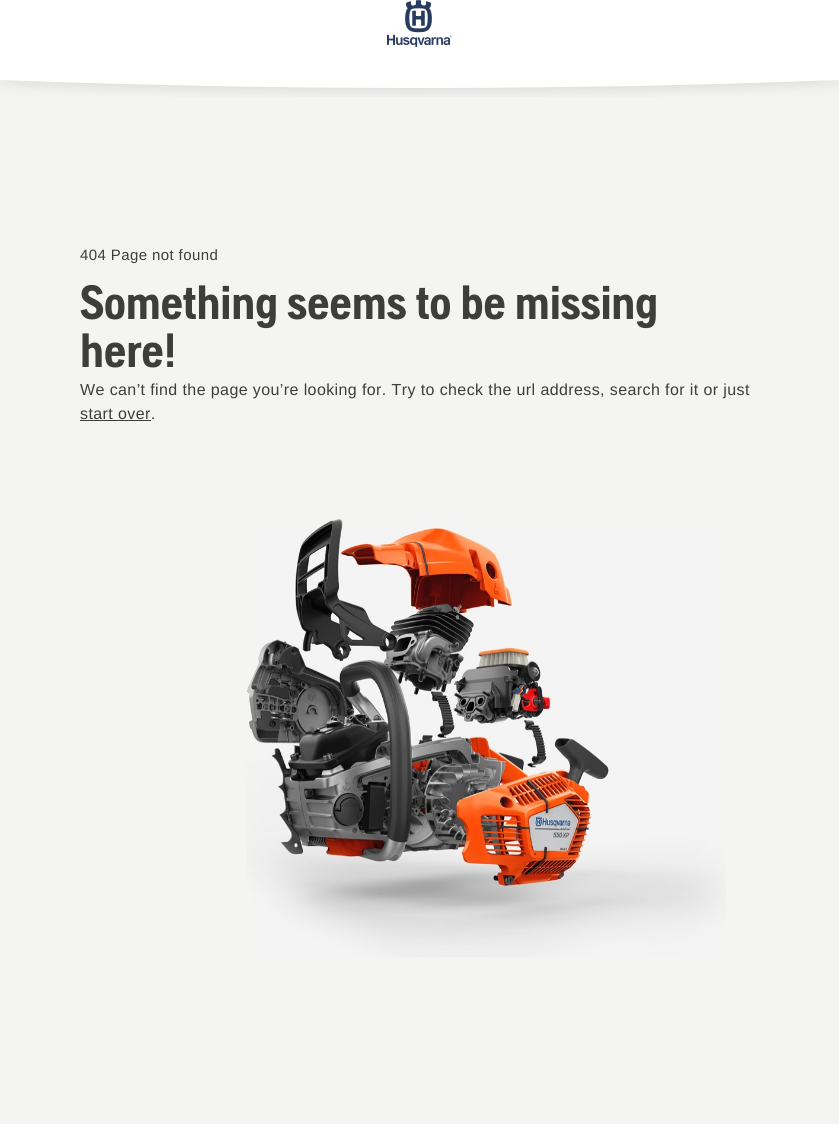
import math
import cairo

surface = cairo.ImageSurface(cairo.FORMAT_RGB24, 839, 1124)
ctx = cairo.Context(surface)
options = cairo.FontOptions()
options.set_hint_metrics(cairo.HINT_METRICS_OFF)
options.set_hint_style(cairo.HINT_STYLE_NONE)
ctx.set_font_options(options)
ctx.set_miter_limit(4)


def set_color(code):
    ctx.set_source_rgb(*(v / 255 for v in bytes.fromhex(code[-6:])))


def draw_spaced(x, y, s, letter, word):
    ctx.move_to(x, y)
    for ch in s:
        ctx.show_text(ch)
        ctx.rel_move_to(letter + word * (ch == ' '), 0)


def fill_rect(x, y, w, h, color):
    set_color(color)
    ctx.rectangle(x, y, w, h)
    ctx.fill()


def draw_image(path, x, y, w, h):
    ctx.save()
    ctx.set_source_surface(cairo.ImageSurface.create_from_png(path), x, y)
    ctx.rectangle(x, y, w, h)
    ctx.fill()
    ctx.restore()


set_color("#ffffff")
ctx.paint()
draw_image("assets/img1.png", 387, 0, 65, 47)
fill_rect(0, 80, 839, 1044, "#f4f4f3")
draw_image("assets/img2.png", 0, 80, 839, 17)
ctx.select_font_face("Liberation Sans")
ctx.set_font_size(15)
set_color("#3d3d3c")
draw_spaced(80, 260, "404 Page not found", 0.4, 0)
ctx.select_font_face("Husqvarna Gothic", cairo.FONT_SLANT_NORMAL, cairo.FONT_WEIGHT_BOLD)
ctx.set_font_size(48)
draw_spaced(80, 319, "Something seems to be missing", -0.4, 0)
draw_spaced(80, 367, "here!", -0.4, 0)
ctx.select_font_face("Liberation Sans")
ctx.set_font_size(16)
draw_spaced(80, 395, "We can’t find the page you’re looking for. Try to check the url address, search for it or just", 0.4, 0)
draw_spaced(80, 419, "start over.", 0.4, 0)
fill_rect(80, 420, 71, 1, "#3d3d3c")
draw_image("assets/img3.png", 247, 519, 479, 438)
surface.write_to_png("output.png")
